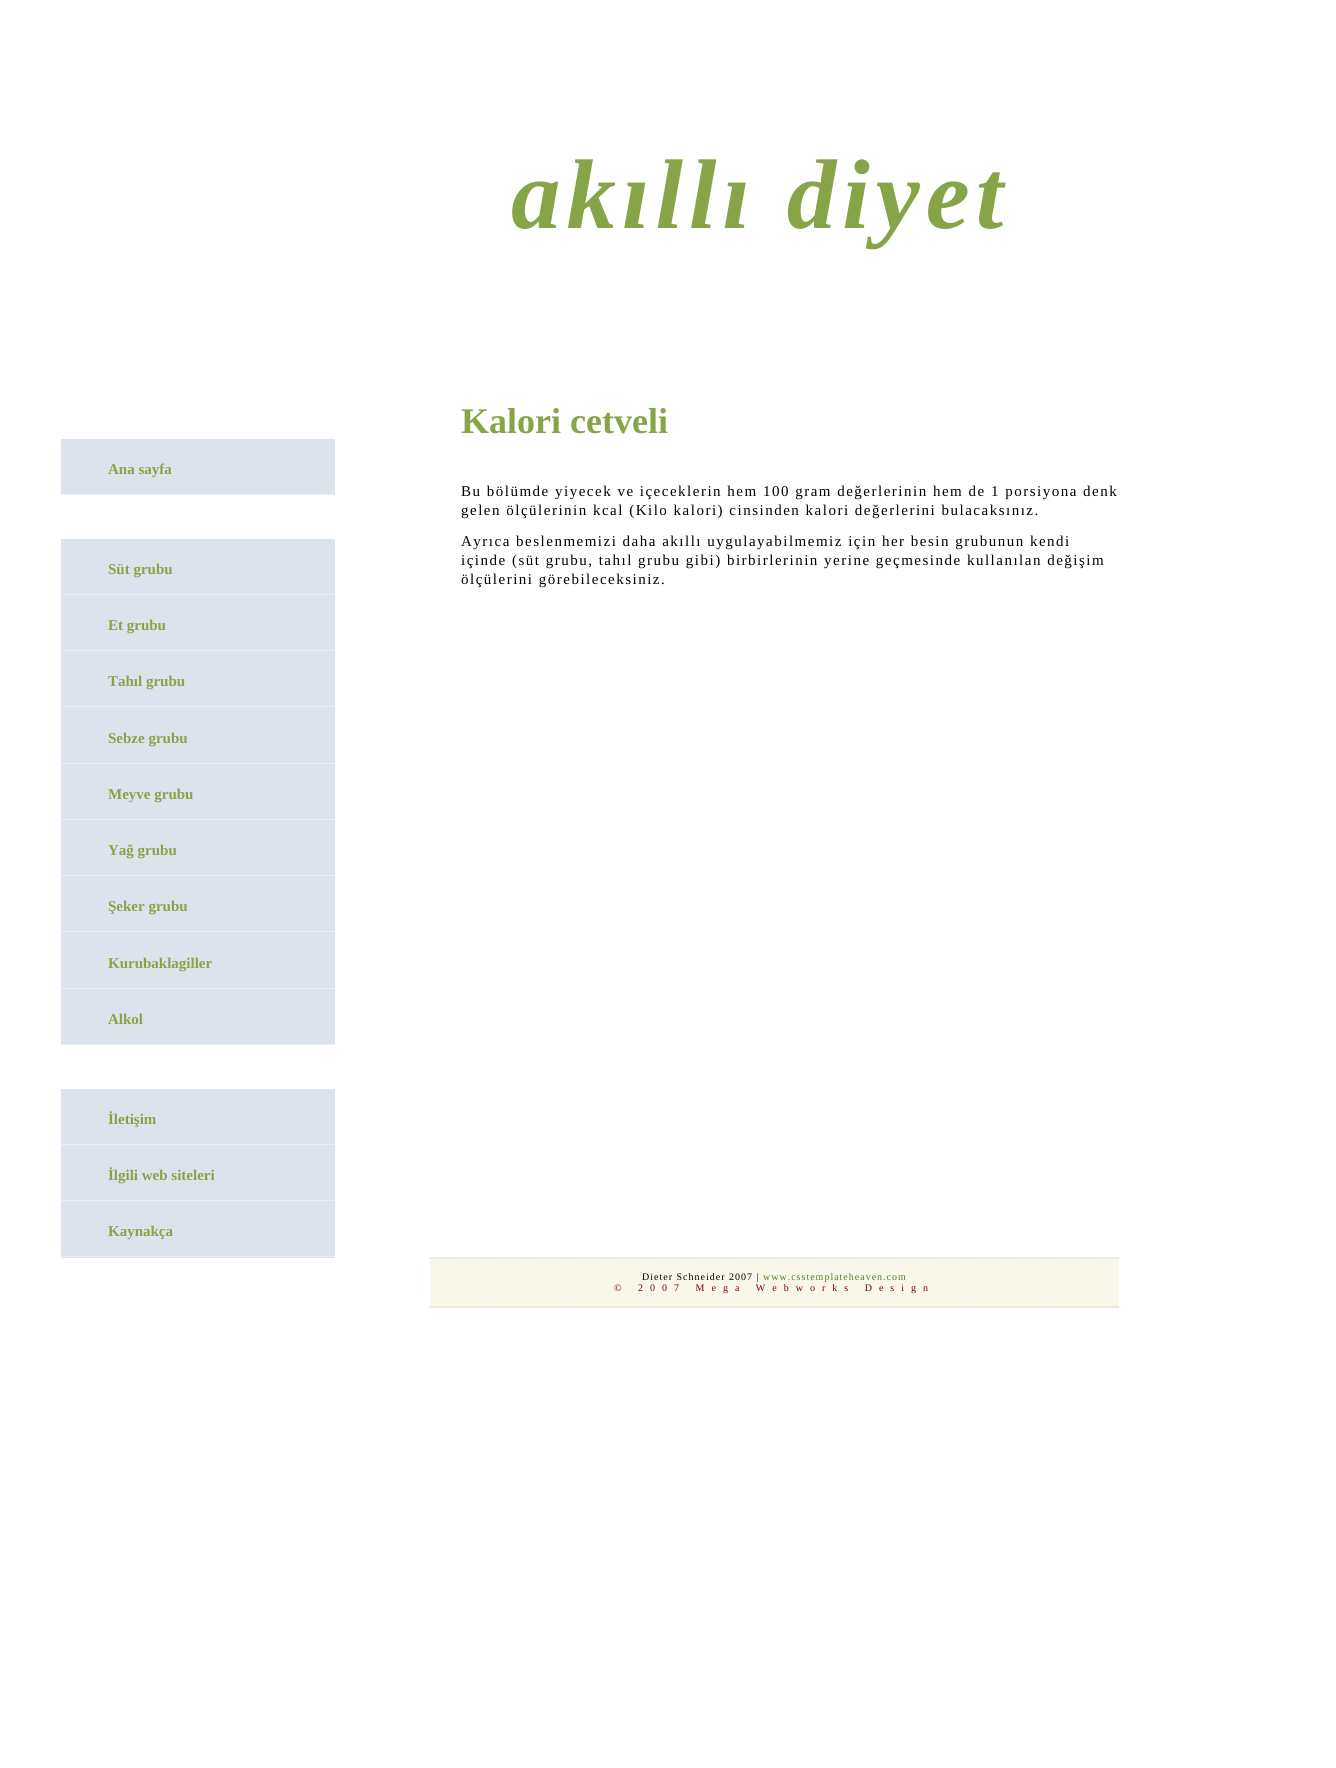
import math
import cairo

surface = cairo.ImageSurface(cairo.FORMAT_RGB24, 1336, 1768)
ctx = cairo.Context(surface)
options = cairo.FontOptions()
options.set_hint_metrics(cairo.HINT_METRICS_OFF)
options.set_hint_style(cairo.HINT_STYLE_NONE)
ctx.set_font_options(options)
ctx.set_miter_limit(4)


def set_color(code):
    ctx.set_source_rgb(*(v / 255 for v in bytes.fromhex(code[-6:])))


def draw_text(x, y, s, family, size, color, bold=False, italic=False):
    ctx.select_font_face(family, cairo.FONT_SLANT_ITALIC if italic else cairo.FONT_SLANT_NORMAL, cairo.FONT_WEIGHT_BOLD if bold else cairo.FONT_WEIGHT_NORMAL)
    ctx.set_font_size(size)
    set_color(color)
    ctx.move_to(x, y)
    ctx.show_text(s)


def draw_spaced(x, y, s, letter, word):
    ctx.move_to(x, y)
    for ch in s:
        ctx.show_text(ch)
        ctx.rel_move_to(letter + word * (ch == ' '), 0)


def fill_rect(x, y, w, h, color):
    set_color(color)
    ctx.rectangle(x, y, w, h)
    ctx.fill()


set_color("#ffffff")
ctx.paint()
ctx.select_font_face("Liberation Serif", cairo.FONT_SLANT_ITALIC, cairo.FONT_WEIGHT_BOLD)
ctx.set_font_size(99)
set_color("#87a448")
draw_spaced(511, 228, "akıllı diyet", 6, 0)
fill_rect(61, 439, 274, 55, "#dce3ed")
fill_rect(61, 494, 274, 1, "#eeeeee")
draw_text(108, 474, "Ana sayfa", "Liberation Serif", 15, "#87a448", bold=True)
fill_rect(61, 539, 274, 55, "#dce3ed")
fill_rect(61, 594, 274, 1, "#eeeeee")
draw_text(108, 574, "Süt grubu", "Liberation Serif", 15, "#87a448", bold=True)
fill_rect(61, 595, 274, 55, "#dce3ed")
fill_rect(61, 650, 274, 1, "#eeeeee")
draw_text(108, 630, "Et grubu", "Liberation Serif", 15, "#87a448", bold=True)
fill_rect(61, 651, 274, 112, "#dce3ed")
fill_rect(61, 706, 274, 1, "#eeeeee")
draw_text(108, 686, "Tahıl grubu", "Liberation Serif", 15, "#87a448", bold=True)
fill_rect(61, 763, 274, 1, "#eeeeee")
draw_text(108, 743, "Sebze grubu", "Liberation Serif", 15, "#87a448", bold=True)
fill_rect(61, 764, 274, 55, "#dce3ed")
fill_rect(61, 819, 274, 1, "#eeeeee")
draw_text(108, 799, "Meyve grubu", "Liberation Serif", 15, "#87a448", bold=True)
fill_rect(61, 820, 274, 55, "#dce3ed")
fill_rect(61, 875, 274, 1, "#eeeeee")
draw_text(108, 855, "Yağ grubu", "Liberation Serif", 15, "#87a448", bold=True)
fill_rect(61, 876, 274, 112, "#dce3ed")
fill_rect(61, 931, 274, 1, "#eeeeee")
draw_text(108, 911, "Şeker grubu", "Liberation Serif", 15, "#87a448", bold=True)
fill_rect(61, 988, 274, 1, "#eeeeee")
draw_text(108, 968, "Kurubaklagiller", "Liberation Serif", 15, "#87a448", bold=True)
fill_rect(61, 989, 274, 55, "#dce3ed")
fill_rect(61, 1044, 274, 1, "#eeeeee")
draw_text(108, 1024, "Alkol", "Liberation Serif", 15, "#87a448", bold=True)
fill_rect(61, 1089, 274, 55, "#dce3ed")
fill_rect(61, 1144, 274, 1, "#eeeeee")
draw_text(108, 1124, "İletişim", "Liberation Serif", 15, "#87a448", bold=True)
fill_rect(61, 1145, 274, 55, "#dce3ed")
fill_rect(61, 1200, 274, 1, "#eeeeee")
draw_text(108, 1180, "İlgili web siteleri", "Liberation Serif", 15, "#87a448", bold=True)
fill_rect(61, 1201, 274, 57, "#dce3ed")
fill_rect(61, 1256, 274, 1, "#eeeeee")
draw_text(108, 1236, "Kaynakça", "Liberation Serif", 15, "#87a448", bold=True)
draw_text(461, 433, "Kalori cetveli", "Liberation Serif", 36, "#87a448", bold=True)
ctx.select_font_face("Liberation Serif")
ctx.set_font_size(15)
set_color("#000000")
draw_spaced(461, 496, "Bu bölümde yiyecek ve içeceklerin hem 100 gram değerlerinin hem de 1 porsiyona denk", 1.5, 0)
draw_spaced(461, 515, "gelen ölçülerinin kcal (Kilo kalori) cinsinden kalori değerlerini bulacaksınız.", 1.5, 0)
draw_spaced(461, 546, "Ayrıca beslenmemizi daha akıllı uygulayabilmemiz için her besin grubunun kendi", 1.5, 0)
draw_spaced(461, 565, "içinde (süt grubu, tahıl grubu gibi) birbirlerinin yerine geçmesinde kullanılan değişim", 1.5, 0)
draw_spaced(461, 584, "ölçülerini görebileceksiniz.", 1.5, 0)
fill_rect(430, 1258, 689, 50, "#f9f7ea")
ctx.new_path()
ctx.move_to(430, 1258)
ctx.line_to(1119, 1258)
set_color("#cccccc")
ctx.set_line_width(1.2)
ctx.set_dash([1.25, 1.25])
ctx.stroke()
ctx.new_path()
ctx.move_to(430, 1307)
ctx.line_to(1119, 1307)
ctx.stroke()
ctx.set_font_size(10)
set_color("#000000")
draw_spaced(642, 1280, "Dieter Schneider 2007 |", 1, 0)
set_color("#557c2b")
draw_spaced(763, 1280, "www.csstemplateheaven.com", 1, 0)
set_color("#800000")
draw_spaced(614, 1291, "© 2007 Mega Webworks Design", 7, 0)
surface.write_to_png("output.png")
